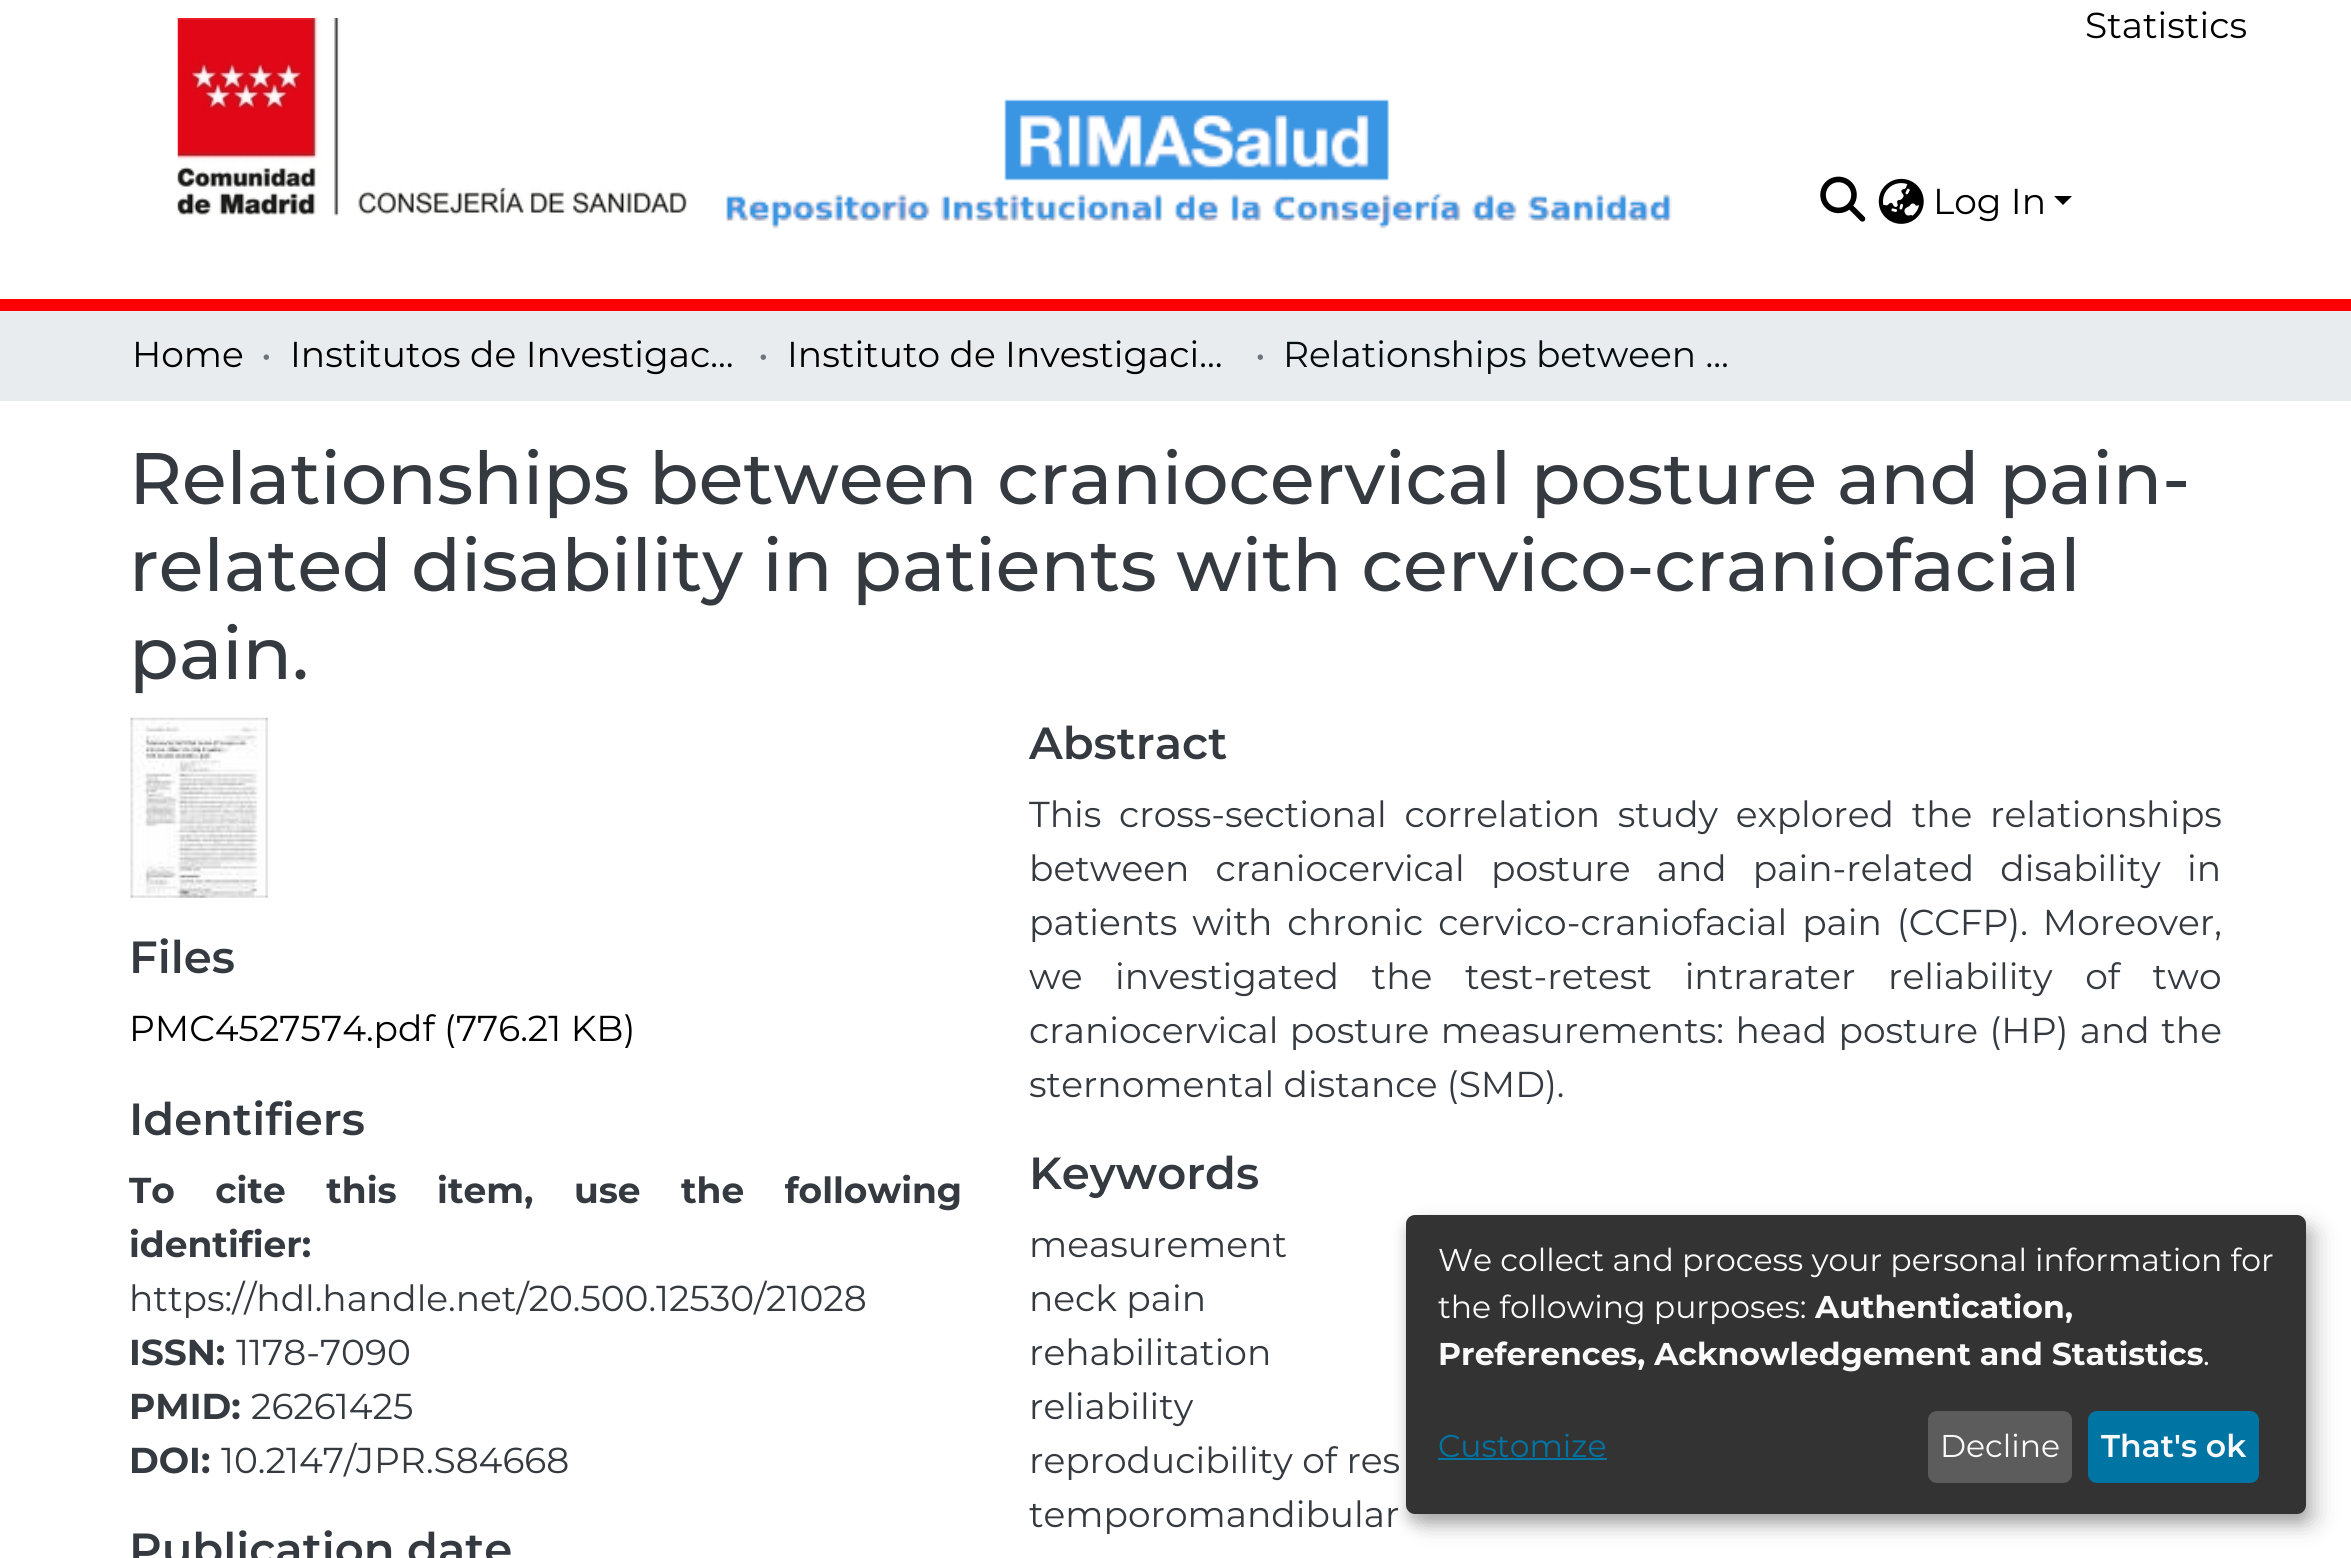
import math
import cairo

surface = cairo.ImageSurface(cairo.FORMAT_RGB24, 2351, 1558)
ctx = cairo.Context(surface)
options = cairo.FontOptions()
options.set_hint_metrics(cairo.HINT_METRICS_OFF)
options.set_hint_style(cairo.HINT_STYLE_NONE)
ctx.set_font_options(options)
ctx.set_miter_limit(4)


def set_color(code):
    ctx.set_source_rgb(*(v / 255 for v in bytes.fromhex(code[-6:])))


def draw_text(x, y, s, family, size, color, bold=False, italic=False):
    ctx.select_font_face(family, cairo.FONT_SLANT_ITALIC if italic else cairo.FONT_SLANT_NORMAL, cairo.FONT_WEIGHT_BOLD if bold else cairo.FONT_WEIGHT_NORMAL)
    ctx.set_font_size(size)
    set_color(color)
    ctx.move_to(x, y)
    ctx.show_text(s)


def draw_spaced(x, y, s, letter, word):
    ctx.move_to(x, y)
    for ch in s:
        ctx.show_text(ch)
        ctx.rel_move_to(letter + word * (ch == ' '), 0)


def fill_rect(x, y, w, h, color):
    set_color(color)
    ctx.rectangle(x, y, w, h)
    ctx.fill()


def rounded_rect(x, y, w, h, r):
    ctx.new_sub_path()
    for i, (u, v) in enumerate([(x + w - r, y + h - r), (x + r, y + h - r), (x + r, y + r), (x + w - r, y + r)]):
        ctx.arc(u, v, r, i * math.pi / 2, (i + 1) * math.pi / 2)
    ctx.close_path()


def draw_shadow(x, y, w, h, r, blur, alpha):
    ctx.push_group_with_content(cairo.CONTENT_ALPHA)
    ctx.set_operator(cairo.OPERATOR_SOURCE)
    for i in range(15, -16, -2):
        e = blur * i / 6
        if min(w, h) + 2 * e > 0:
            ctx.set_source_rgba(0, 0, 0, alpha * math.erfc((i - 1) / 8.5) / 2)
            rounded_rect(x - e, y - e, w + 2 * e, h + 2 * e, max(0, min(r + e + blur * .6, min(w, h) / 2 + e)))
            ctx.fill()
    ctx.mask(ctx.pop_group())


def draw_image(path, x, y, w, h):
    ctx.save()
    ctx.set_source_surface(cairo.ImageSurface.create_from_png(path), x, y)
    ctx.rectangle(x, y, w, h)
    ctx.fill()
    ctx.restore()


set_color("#ffffff")
ctx.paint()
fill_rect(0, 299, 2351, 12, "#ff0000")
draw_image("assets/img1.png", 177, 18, 510, 199)
draw_image("assets/img2.png", 726, 99, 946, 130)
draw_image("assets/img3.png", 1820, 176, 46, 46)
draw_image("assets/img4.png", 1878, 178, 46, 46)
draw_text(1933, 214, "Log In", "Montserrat", 36, "#000000")
ctx.new_path()
ctx.move_to(2054, 196)
ctx.line_to(2072, 196)
ctx.line_to(2063, 205)
ctx.close_path()
ctx.fill()
draw_text(2085, 38, "Statistics", "Montserrat", 36, "#000000")
fill_rect(0, 311, 2351, 90, "#e9ecef")
draw_text(132, 367, "Home", "Montserrat", 36, "#000000")
draw_text(261, 367, "•", "Montserrat", 36, "#6c757d")
draw_text(290, 367, "Institutos de Investigac…", "Montserrat", 36, "#000000")
draw_text(758, 367, "•", "Montserrat", 36, "#6c757d")
draw_text(787, 367, "Instituto de Investigaci…", "Montserrat", 36, "#000000")
draw_text(1255, 367, "•", "Montserrat", 36, "#6c757d")
draw_text(1283, 367, "Relationships between …", "Montserrat", 36, "#040d11")
draw_text(129, 504, "Relationships between craniocervical posture and pain-", "Montserrat Medium", 72.85, "#343a40")
draw_text(129, 591, "related disability in patients with cervico-craniofacial", "Montserrat Medium", 72.85, "#343a40")
draw_text(129, 679, "pain.", "Montserrat Medium", 72.85, "#343a40")
draw_image("assets/img5.png", 130, 717, 138, 181)
draw_text(129, 973, "Files", "Montserrat SemiBold", 45, "#343a40")
draw_text(129, 1041, "PMC4527574.pdf (776.21 KB)", "Montserrat", 36, "#000000")
draw_text(129, 1135, "Identifiers", "Montserrat SemiBold", 45, "#343a40")
ctx.select_font_face("Montserrat", cairo.FONT_SLANT_NORMAL, cairo.FONT_WEIGHT_BOLD)
ctx.set_font_size(36)
draw_spaced(129, 1203, "To cite this item, use the following", 0, 30.25)
draw_text(129, 1257, "identifier:", "Montserrat", 36, "#343a40", bold=True)
draw_text(129, 1311, "https://hdl.handle.net/20.500.12530/21028", "Montserrat", 36, "#343a40")
draw_text(129, 1365, "ISSN:", "Montserrat", 36, "#343a40", bold=True)
draw_text(236, 1365, "1178-7090", "Montserrat", 36, "#343a40")
draw_text(129, 1419, "PMID:", "Montserrat", 36, "#343a40", bold=True)
draw_text(251, 1419, "26261425", "Montserrat", 36, "#343a40")
draw_text(129, 1473, "DOI:", "Montserrat", 36, "#343a40", bold=True)
draw_text(221, 1473, "10.2147/JPR.S84668", "Montserrat", 36, "#343a40")
draw_text(129, 1565, "Publication date", "Montserrat SemiBold", 45, "#343a40")
draw_text(1029, 759, "Abstract", "Montserrat SemiBold", 45, "#343a40")
ctx.select_font_face("Montserrat")
ctx.set_font_size(36)
draw_spaced(1029, 827, "This cross-sectional correlation study explored the relationships", 0, 8.25)
draw_spaced(1029, 881, "between craniocervical posture and pain-related disability in", 0, 16.75)
draw_spaced(1029, 935, "patients with chronic cervico-craniofacial pain (CCFP). Moreover,", 0, 5.5)
draw_spaced(1029, 989, "we investigated the test-retest intrarater reliability of two", 0, 23.25)
draw_spaced(1029, 1043, "craniocervical posture measurements: head posture (HP) and the", 0, 2)
draw_text(1029, 1097, "sternomental distance (SMD).", "Montserrat", 36, "#343a40")
draw_text(1029, 1189, "Keywords", "Montserrat SemiBold", 45, "#343a40")
draw_text(1029, 1257, "measurement", "Montserrat", 36, "#343a40")
draw_text(1029, 1311, "neck pain", "Montserrat", 36, "#343a40")
draw_text(1029, 1365, "rehabilitation", "Montserrat", 36, "#343a40")
draw_text(1029, 1419, "reliability", "Montserrat", 36, "#343a40")
draw_text(1029, 1473, "reproducibility of res", "Montserrat", 36, "#343a40")
draw_text(1029, 1527, "temporomandibular", "Montserrat", 36, "#343a40")
set_color("#000000")
draw_shadow(1418, 1226, 900, 300, 9, 11, 0.19)
draw_shadow(1406, 1224, 900, 299, 9, 7, 0.2)
set_color("#333333")
rounded_rect(1406, 1215, 900, 299, 9)
ctx.fill()
draw_text(1438, 1271, "We collect and process your personal information for", "Montserrat", 31.5, "#fafafa")
draw_text(1438, 1318, "the following purposes:", "Montserrat", 31.5, "#fafafa")
draw_text(1815, 1318, "Authentication,", "Montserrat", 31.5, "#fafafa", bold=True)
draw_text(1438, 1365, "Preferences, Acknowledgement and Statistics", "Montserrat", 31.5, "#fafafa", bold=True)
draw_text(2203, 1365, ".", "Montserrat", 31.5, "#fafafa")
draw_text(1438, 1457, "Customize", "Montserrat", 31.5, "#0074a3")
fill_rect(1438, 1458, 169, 2, "#0074a3")
set_color("#5c5c5c")
rounded_rect(1928, 1411, 144, 72, 9)
ctx.fill()
draw_text(1940, 1457, "Decline", "Montserrat", 31.5, "#fafafa")
set_color("#0074a3")
rounded_rect(2088, 1411, 171, 72, 9)
ctx.fill()
draw_text(2101, 1457, "That's ok", "Montserrat SemiBold", 31.5, "#fafafa")
surface.write_to_png("output.png")
